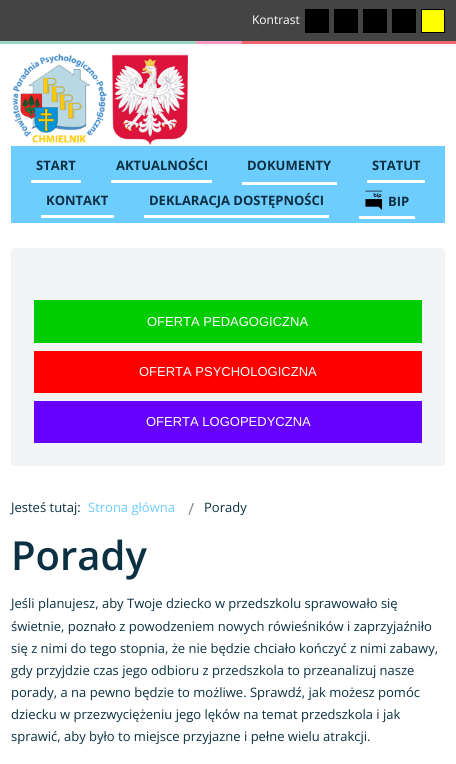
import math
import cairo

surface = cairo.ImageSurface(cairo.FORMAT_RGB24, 456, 764)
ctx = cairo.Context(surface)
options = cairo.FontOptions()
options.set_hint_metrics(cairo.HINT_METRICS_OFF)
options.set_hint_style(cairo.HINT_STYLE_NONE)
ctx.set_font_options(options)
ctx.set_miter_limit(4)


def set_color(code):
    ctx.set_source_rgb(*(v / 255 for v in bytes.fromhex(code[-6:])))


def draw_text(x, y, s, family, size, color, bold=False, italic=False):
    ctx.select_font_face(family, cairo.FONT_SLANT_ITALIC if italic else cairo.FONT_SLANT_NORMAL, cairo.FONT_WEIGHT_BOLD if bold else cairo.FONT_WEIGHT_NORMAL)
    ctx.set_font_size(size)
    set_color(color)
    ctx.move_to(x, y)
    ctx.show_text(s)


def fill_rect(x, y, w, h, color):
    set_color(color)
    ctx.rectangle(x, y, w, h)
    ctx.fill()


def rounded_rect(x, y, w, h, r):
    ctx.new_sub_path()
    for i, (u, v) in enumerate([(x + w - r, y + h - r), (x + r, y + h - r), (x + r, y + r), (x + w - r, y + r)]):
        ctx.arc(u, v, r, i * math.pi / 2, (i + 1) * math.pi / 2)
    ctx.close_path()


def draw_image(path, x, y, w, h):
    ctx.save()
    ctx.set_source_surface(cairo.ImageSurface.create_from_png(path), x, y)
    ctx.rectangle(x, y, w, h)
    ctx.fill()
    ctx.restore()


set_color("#ffffff")
ctx.paint()
fill_rect(0, 0, 456, 41, "#444444")
draw_image("assets/img1.png", 0, 41, 456, 3)
draw_text(252, 24, "Kontrast", "Open Sans", 12, "#ffffff")
fill_rect(305, 9, 24, 24, "#000000")
fill_rect(334, 9, 24, 24, "#000000")
fill_rect(363, 9, 24, 24, "#000000")
fill_rect(392, 9, 24, 24, "#000000")
set_color("#ffff00")
ctx.rectangle(421.5, 9.5, 23, 23)
ctx.fill_preserve()
set_color("#000000")
ctx.set_line_width(1)
ctx.stroke()
draw_image("assets/img2.png", 13, 54, 175, 91)
fill_rect(11, 146, 434, 77, "#6ecdff")
fill_rect(31, 180, 50, 3, "#ffffff")
draw_text(36, 170, "START", "Open Sans", 13, "#0b3041", bold=True)
fill_rect(111, 180, 101, 3, "#ffffff")
draw_text(116, 170, "AKTUALNOŚCI", "Open Sans", 13, "#0b3041", bold=True)
fill_rect(242, 182, 95, 3, "#ffffff")
draw_text(247, 170, "DOKUMENTY", "Open Sans", 13, "#0b3041", bold=True)
fill_rect(367, 180, 58, 3, "#ffffff")
draw_text(372, 170, "STATUT", "Open Sans", 13, "#0b3041", bold=True)
fill_rect(41, 215, 73, 3, "#ffffff")
draw_text(46, 205, "KONTAKT", "Open Sans", 13, "#0b3041", bold=True)
fill_rect(144, 215, 185, 3, "#ffffff")
draw_text(149, 205, "DEKLARACJA DOSTĘPNOŚCI", "Open Sans", 13, "#0b3041", bold=True)
fill_rect(359, 216, 56, 3, "#ffffff")
draw_image("assets/img3.png", 365, 190, 18, 20)
draw_text(388, 206, "BIP", "Open Sans", 13, "#0b3041", bold=True)
set_color("#f3f4f6")
rounded_rect(11, 248, 434, 218, 4)
ctx.fill()
fill_rect(34, 300, 388, 43, "#00cc00")
draw_text(147, 326, "OFERTA PEDAGOGICZNA", "Liberation Sans", 13, "#ffffff")
fill_rect(34, 351, 388, 42, "#ff0000")
draw_text(139, 376, "OFERTA PSYCHOLOGICZNA", "Liberation Sans", 13, "#ffffff")
fill_rect(34, 401, 388, 42, "#6600ff")
draw_text(146, 426, "OFERTA LOGOPEDYCZNA", "Liberation Sans", 13, "#ffffff")
draw_text(11, 512, "Jesteś tutaj:", "Open Sans", 13, "#0b3041")
draw_text(88, 512, "Strona główna", "Open Sans", 13, "#6ecdff")
draw_image("assets/img4.png", 188, 503, 6, 12)
draw_text(204, 512, "Porady", "Open Sans", 13, "#0b3041")
draw_text(11, 570, "Porady", "Open Sans SemiBold", 40, "#0b3041")
draw_text(11, 608, "Jeśli planujesz, aby Twoje dziecko w przedszkolu sprawowało się", "Open Sans", 13, "#0b3041")
draw_text(11, 631, "świetnie, poznało z powodzeniem nowych rówieśników i zaprzyjaźniło", "Open Sans", 13, "#0b3041")
draw_text(11, 653, "się z nimi do tego stopnia, że nie będzie chciało kończyć z nimi zabawy,", "Open Sans", 13, "#0b3041")
draw_text(11, 675, "gdy przyjdzie czas jego odbioru z przedszkola to przeanalizuj nasze", "Open Sans", 13, "#0b3041")
draw_text(11, 697, "porady, a na pewno będzie to możliwe. Sprawdź, jak możesz pomóc", "Open Sans", 13, "#0b3041")
draw_text(11, 719, "dziecku w przezwyciężeniu jego lęków na temat przedszkola i jak", "Open Sans", 13, "#0b3041")
draw_text(11, 741, "sprawić, aby było to miejsce przyjazne i pełne wielu atrakcji.", "Open Sans", 13, "#0b3041")
surface.write_to_png("output.png")
